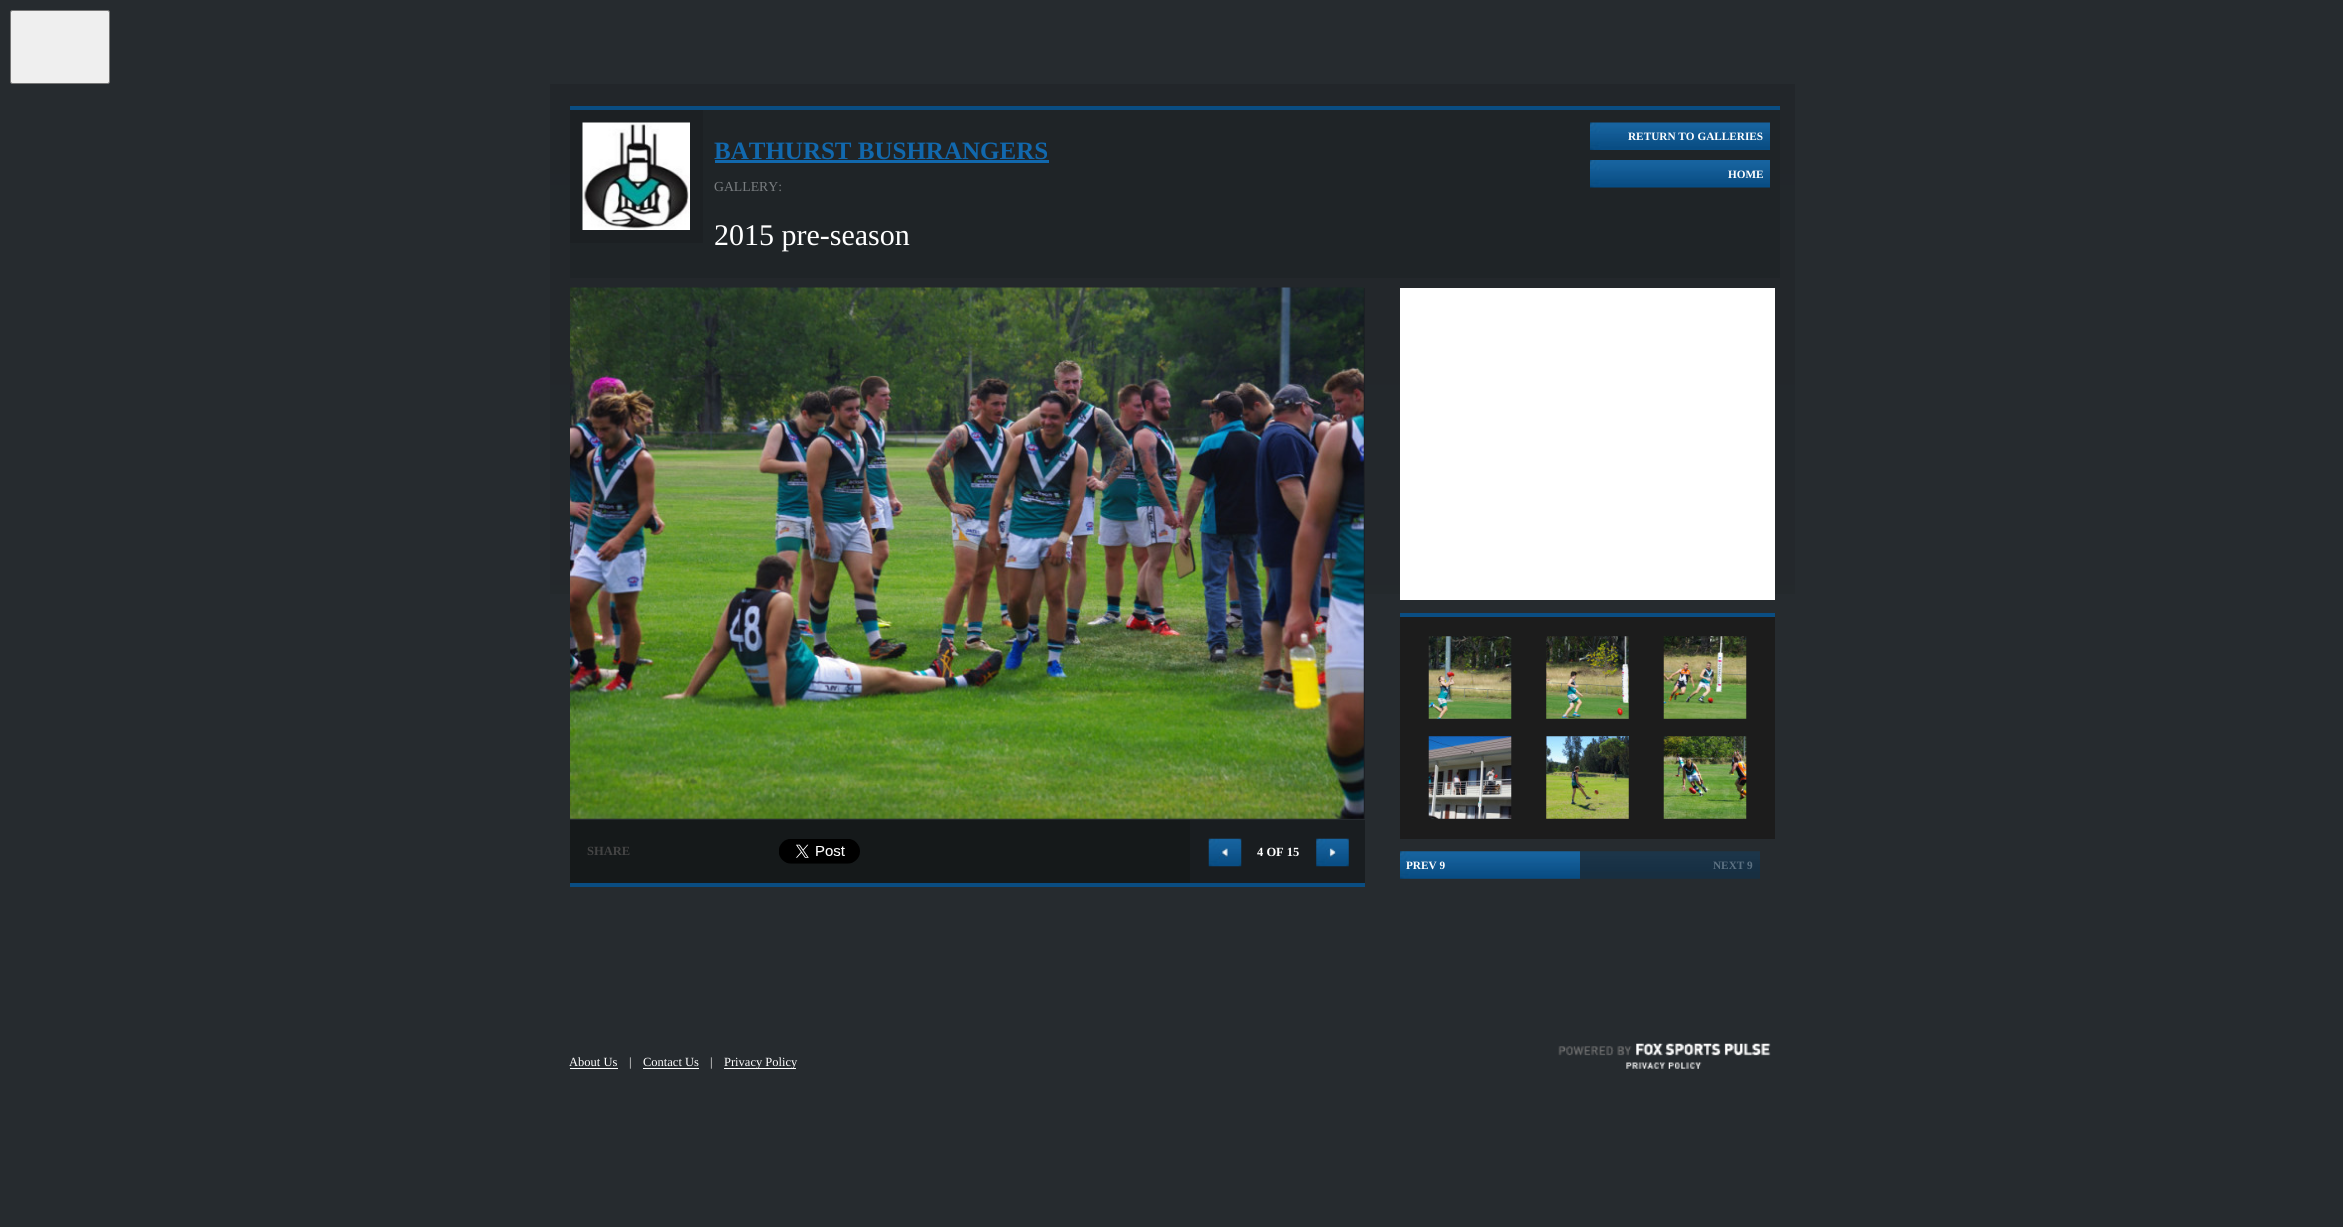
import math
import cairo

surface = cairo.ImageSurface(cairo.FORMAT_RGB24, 2343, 1227)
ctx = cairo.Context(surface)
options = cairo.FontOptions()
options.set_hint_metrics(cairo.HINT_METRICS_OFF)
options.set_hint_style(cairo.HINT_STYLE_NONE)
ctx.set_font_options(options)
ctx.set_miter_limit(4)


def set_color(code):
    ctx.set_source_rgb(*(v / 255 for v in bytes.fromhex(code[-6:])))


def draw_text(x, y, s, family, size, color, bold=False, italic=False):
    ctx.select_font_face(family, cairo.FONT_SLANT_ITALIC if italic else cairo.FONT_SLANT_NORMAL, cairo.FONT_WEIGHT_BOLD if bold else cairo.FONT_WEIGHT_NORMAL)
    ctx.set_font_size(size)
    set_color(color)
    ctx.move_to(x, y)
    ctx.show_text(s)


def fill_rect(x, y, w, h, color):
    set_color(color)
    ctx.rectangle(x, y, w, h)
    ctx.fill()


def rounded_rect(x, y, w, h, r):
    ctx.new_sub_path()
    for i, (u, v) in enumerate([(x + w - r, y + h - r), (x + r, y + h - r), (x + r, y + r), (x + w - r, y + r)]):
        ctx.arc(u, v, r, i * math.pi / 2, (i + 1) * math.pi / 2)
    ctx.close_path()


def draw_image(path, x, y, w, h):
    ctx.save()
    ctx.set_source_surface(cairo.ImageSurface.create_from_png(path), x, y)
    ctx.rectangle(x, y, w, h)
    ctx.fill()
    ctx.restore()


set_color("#262b2f")
ctx.paint()
set_color("#efefef")
rounded_rect(10.5, 10.5, 99, 73, 2)
ctx.fill_preserve()
set_color("#767676")
ctx.set_line_width(1)
ctx.stroke()
gradient = cairo.LinearGradient(550, 84, 550, 1104)
gradient.add_color_stop_rgba(0, 0.133, 0.149, 0.165, 1)
gradient.add_color_stop_rgba(1, 0.149, 0.169, 0.184, 1)
ctx.set_source(gradient)
ctx.rectangle(550, 84, 1245, 510)
ctx.fill()
fill_rect(570, 110, 1210, 168, "#1f2427")
fill_rect(570, 106, 1210, 4, "#0a4d82")
fill_rect(570, 110, 133, 133, "#1c2023")
draw_image("assets/img1.png", 582, 122, 108, 108)
draw_text(714, 159, "BATHURST BUSHRANGERS", "Liberation Serif", 25, "#1168ad", bold=True)
fill_rect(715, 160, 334, 3, "#1168ad")
draw_text(714, 191, "GALLERY:", "Liberation Serif", 13.75, "#787c7f")
draw_text(714, 245, "2015 pre-season", "Liberation Serif", 30, "#ffffff")
draw_image("assets/img2.png", 1590, 122, 180, 28)
draw_text(1628, 140, "RETURN TO GALLERIES", "Liberation Serif", 11.25, "#ffffff", bold=True)
draw_image("assets/img3.png", 1590, 160, 180, 28)
draw_text(1728, 178, "HOME", "Liberation Serif", 11.25, "#ffffff", bold=True)
fill_rect(570, 288, 795, 531, "#1d2025")
draw_image("assets/img4.png", 570, 287, 794, 532)
fill_rect(570, 883, 795, 4, "#0a4d82")
fill_rect(570, 820, 620, 63, "#15191a")
draw_text(587, 855, "SHARE", "Liberation Serif", 12.5, "#444444", bold=True)
draw_image("assets/img5.png", 779, 839, 81, 25)
fill_rect(1190, 820, 175, 63, "#191d20")
draw_image("assets/img6.png", 1208, 838, 34, 29)
draw_text(1257, 856, "4 OF 15", "Liberation Serif", 12.5, "#ffffff", bold=True)
draw_image("assets/img7.png", 1316, 838, 33, 29)
fill_rect(1400, 288, 375, 312, "#ffffff")
fill_rect(1400, 617, 375, 222, "#1c1c1c")
fill_rect(1400, 613, 375, 4, "#0a4d82")
draw_image("assets/img8.png", 1428, 636, 84, 83)
draw_image("assets/img9.png", 1546, 636, 83, 83)
draw_image("assets/img10.png", 1663, 636, 84, 83)
draw_image("assets/img11.png", 1428, 736, 84, 83)
draw_image("assets/img12.png", 1546, 736, 83, 83)
draw_image("assets/img13.png", 1663, 736, 84, 83)
draw_image("assets/img14.png", 1400, 851, 180, 28)
draw_text(1406, 869, "PREV 9", "Liberation Serif", 11.25, "#ffffff", bold=True)
draw_image("assets/img15.png", 1580, 851, 180, 28)
draw_text(1713, 869, "NEXT 9", "Liberation Serif", 11.25, "#5c7182", bold=True)
draw_text(569, 1066, "About Us", "Liberation Serif", 12.5, "#ffffff")
fill_rect(570, 1068, 48, 1, "#ffffff")
draw_text(629, 1066, "|", "Liberation Serif", 12.5, "#ffffff")
draw_text(643, 1066, "Contact Us", "Liberation Serif", 12.5, "#ffffff")
fill_rect(643, 1068, 56, 1, "#ffffff")
draw_text(710, 1066, "|", "Liberation Serif", 12.5, "#ffffff")
fill_rect(724, 1068, 72, 1, "#ffffff")
draw_text(724, 1066, "Privacy Policy", "Liberation Serif", 12.5, "#ffffff")
draw_image("assets/img16.png", 1558, 1043, 213, 26)
surface.write_to_png("output.png")
